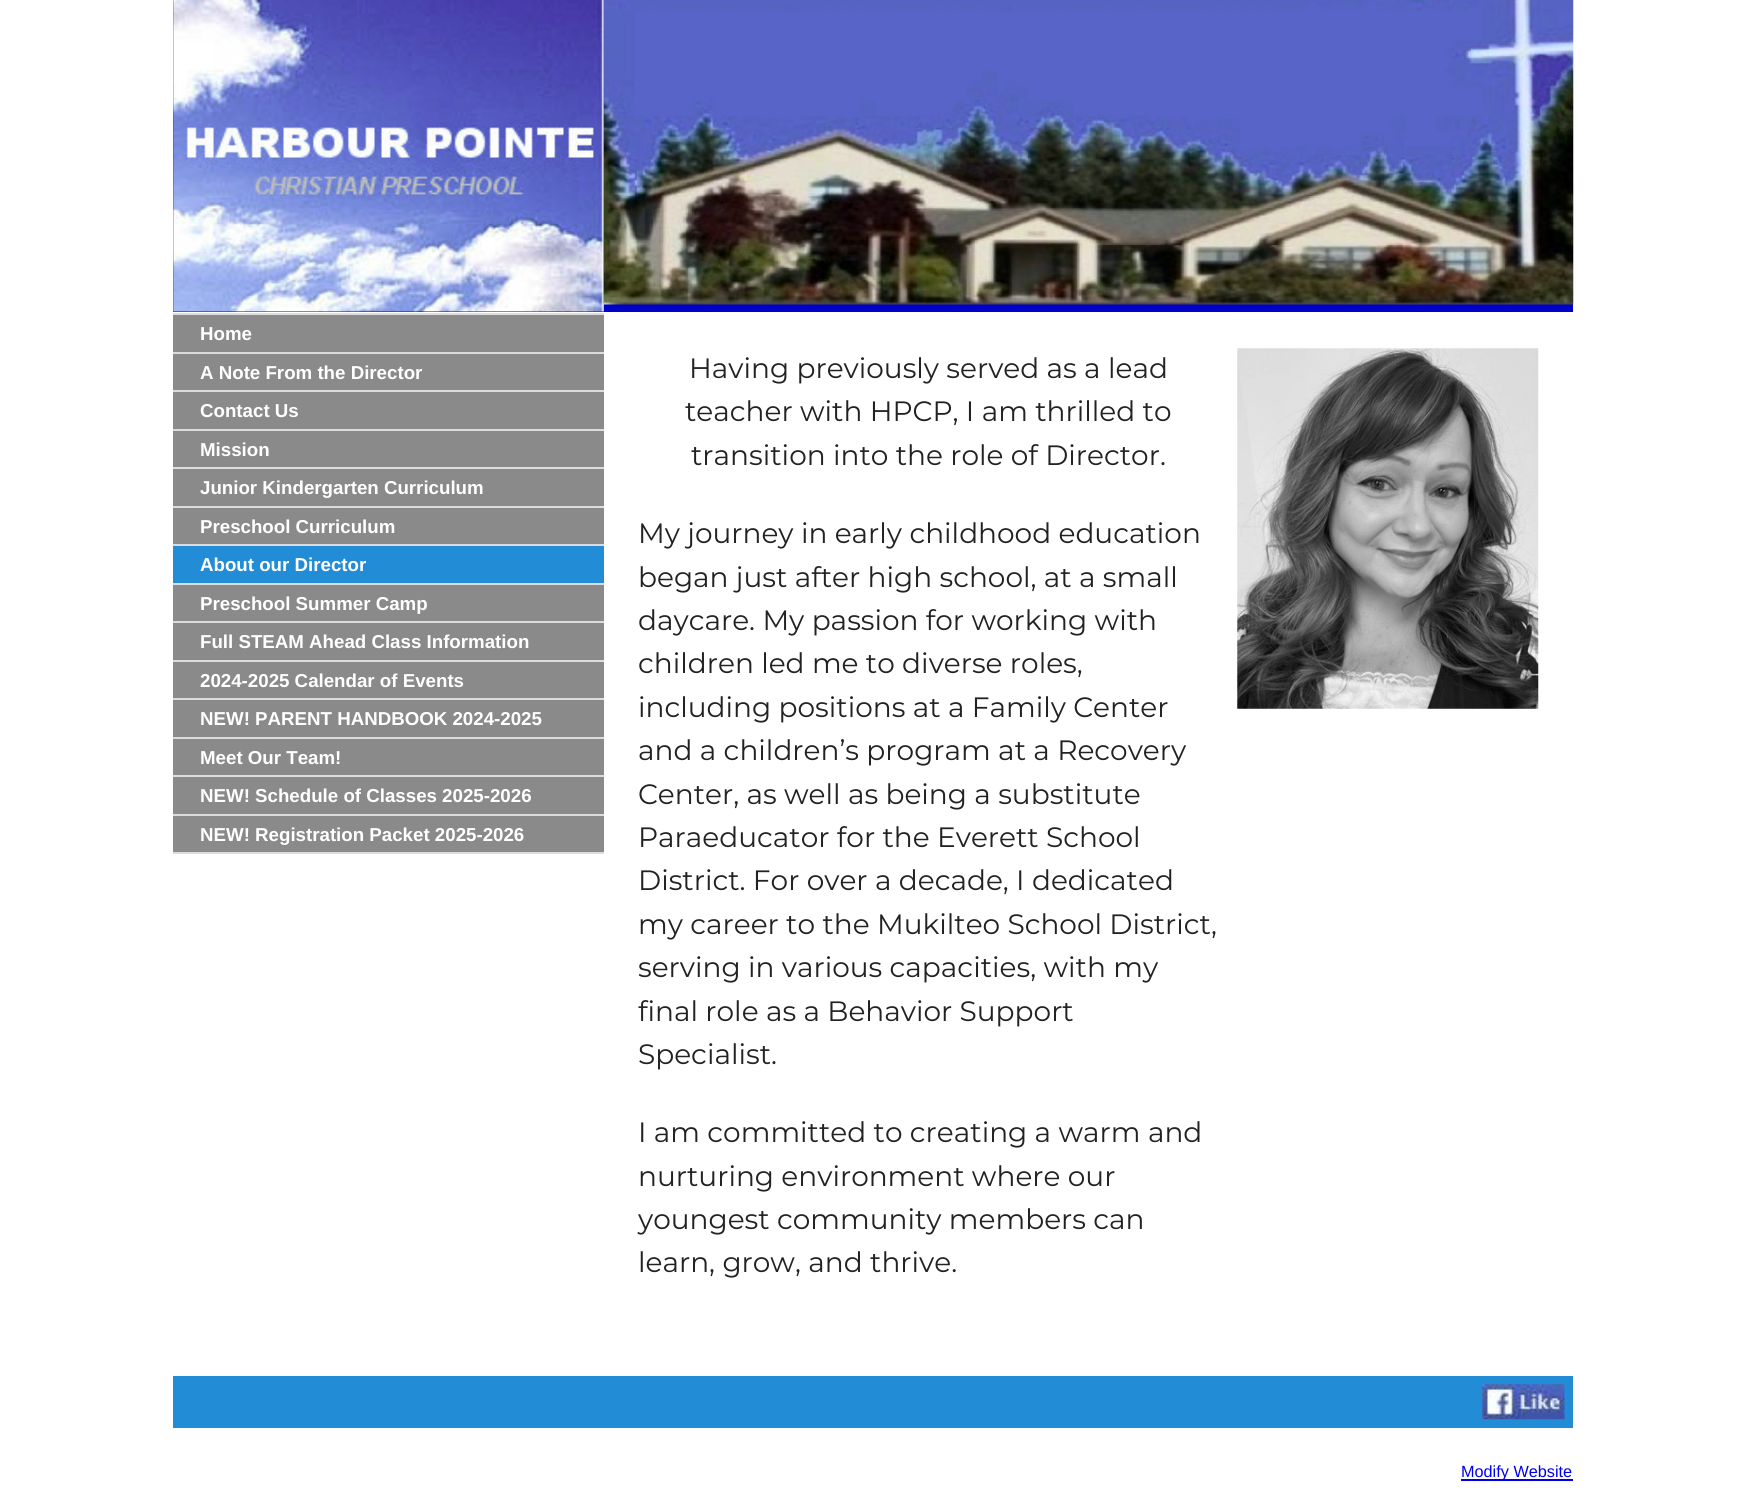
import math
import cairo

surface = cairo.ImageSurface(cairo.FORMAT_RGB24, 1744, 1508)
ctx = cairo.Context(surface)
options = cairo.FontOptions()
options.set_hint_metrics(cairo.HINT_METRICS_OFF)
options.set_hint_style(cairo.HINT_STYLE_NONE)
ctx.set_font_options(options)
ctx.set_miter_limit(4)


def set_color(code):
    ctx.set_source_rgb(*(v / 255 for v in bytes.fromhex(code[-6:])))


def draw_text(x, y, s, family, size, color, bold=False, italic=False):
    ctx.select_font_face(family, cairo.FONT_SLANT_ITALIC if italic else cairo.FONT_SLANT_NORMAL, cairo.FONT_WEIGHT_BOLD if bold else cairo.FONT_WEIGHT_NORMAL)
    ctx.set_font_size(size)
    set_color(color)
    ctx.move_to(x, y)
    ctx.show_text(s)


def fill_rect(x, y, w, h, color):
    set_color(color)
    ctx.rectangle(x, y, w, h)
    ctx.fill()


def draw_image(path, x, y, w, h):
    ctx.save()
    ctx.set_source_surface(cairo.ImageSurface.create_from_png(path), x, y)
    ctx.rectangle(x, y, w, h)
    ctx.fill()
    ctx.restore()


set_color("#ffffff")
ctx.paint()
fill_rect(173, 0, 1400, 312, "#0000cc")
draw_image("assets/img1.png", 173, 0, 431, 312)
draw_image("assets/img2.png", 603, 0, 971, 305)
fill_rect(173, 313, 431, 2, "#dcdcdc")
fill_rect(173, 352, 431, 502, "#dcdcdc")
fill_rect(173, 315, 431, 37, "#8a8a8a")
draw_text(200, 340, "Home", "Liberation Sans", 18.7, "#ffffff", bold=True)
fill_rect(173, 354, 431, 36, "#8a8a8a")
draw_text(200, 379, "A Note From the Director", "Liberation Sans", 18.7, "#ffffff", bold=True)
fill_rect(173, 392, 431, 37, "#8a8a8a")
draw_text(200, 417, "Contact Us", "Liberation Sans", 18.7, "#ffffff", bold=True)
fill_rect(173, 431, 431, 36, "#8a8a8a")
draw_text(200, 456, "Mission", "Liberation Sans", 18.7, "#ffffff", bold=True)
fill_rect(173, 469, 431, 37, "#8a8a8a")
draw_text(200, 494, "Junior Kindergarten Curriculum", "Liberation Sans", 18.7, "#ffffff", bold=True)
fill_rect(173, 508, 431, 36, "#8a8a8a")
draw_text(200, 533, "Preschool Curriculum", "Liberation Sans", 18.7, "#ffffff", bold=True)
fill_rect(173, 546, 431, 37, "#238cd6")
draw_text(200, 571, "About our Director", "Liberation Sans", 18.7, "#ffffff", bold=True)
fill_rect(173, 585, 431, 36, "#8a8a8a")
draw_text(200, 610, "Preschool Summer Camp", "Liberation Sans", 18.7, "#ffffff", bold=True)
fill_rect(173, 623, 431, 37, "#8a8a8a")
draw_text(200, 648, "Full STEAM Ahead Class Information", "Liberation Sans", 18.7, "#ffffff", bold=True)
fill_rect(173, 662, 431, 36, "#8a8a8a")
draw_text(200, 687, "2024-2025 Calendar of Events", "Liberation Sans", 18.7, "#ffffff", bold=True)
fill_rect(173, 700, 431, 37, "#8a8a8a")
draw_text(200, 725, "NEW! PARENT HANDBOOK 2024-2025", "Liberation Sans", 18.7, "#ffffff", bold=True)
fill_rect(173, 739, 431, 36, "#8a8a8a")
draw_text(200, 764, "Meet Our Team!", "Liberation Sans", 18.7, "#ffffff", bold=True)
fill_rect(173, 777, 431, 37, "#8a8a8a")
draw_text(200, 802, "NEW! Schedule of Classes 2025-2026", "Liberation Sans", 18.7, "#ffffff", bold=True)
fill_rect(173, 816, 431, 36, "#8a8a8a")
draw_text(200, 841, "NEW! Registration Packet 2025-2026", "Liberation Sans", 18.7, "#ffffff", bold=True)
draw_text(689, 378, "Having previously served as a lead", "Montserrat", 28, "#222222")
draw_text(685, 421, "teacher with HPCP, I am thrilled to", "Montserrat", 28, "#222222")
draw_text(691, 465, "transition into the role of Director.", "Montserrat", 28, "#222222")
draw_text(638, 543, "My journey in early childhood education", "Montserrat", 28, "#222222")
draw_text(638, 587, "began just after high school, at a small", "Montserrat", 28, "#222222")
draw_text(638, 630, "daycare. My passion for working with", "Montserrat", 28, "#222222")
draw_text(638, 673, "children led me to diverse roles,", "Montserrat", 28, "#222222")
draw_text(638, 717, "including positions at a Family Center", "Montserrat", 28, "#222222")
draw_text(638, 760, "and a children’s program at a Recovery", "Montserrat", 28, "#222222")
draw_text(638, 804, "Center, as well as being a substitute", "Montserrat", 28, "#222222")
draw_text(638, 847, "Paraeducator for the Everett School", "Montserrat", 28, "#222222")
draw_text(638, 890, "District. For over a decade, I dedicated", "Montserrat", 28, "#222222")
draw_text(638, 934, "my career to the Mukilteo School District,", "Montserrat", 28, "#222222")
draw_text(638, 977, "serving in various capacities, with my", "Montserrat", 28, "#222222")
draw_text(638, 1021, "final role as a Behavior Support", "Montserrat", 28, "#222222")
draw_text(638, 1064, "Specialist.", "Montserrat", 28, "#222222")
draw_text(638, 1142, "I am committed to creating a warm and", "Montserrat", 28, "#222222")
draw_text(638, 1186, "nurturing environment where our", "Montserrat", 28, "#222222")
draw_text(638, 1229, "youngest community members can", "Montserrat", 28, "#222222")
draw_text(638, 1272, "learn, grow, and thrive.", "Montserrat", 28, "#222222")
draw_image("assets/img3.png", 1237, 348, 302, 361)
fill_rect(173, 1376, 1400, 52, "#238cd6")
draw_image("assets/img4.png", 1482, 1384, 83, 36)
fill_rect(1461, 1479, 112, 2, "#0000ee")
draw_text(1461, 1477, "Modify Website", "Liberation Sans", 16.25, "#0000ee")
surface.write_to_png("output.png")
